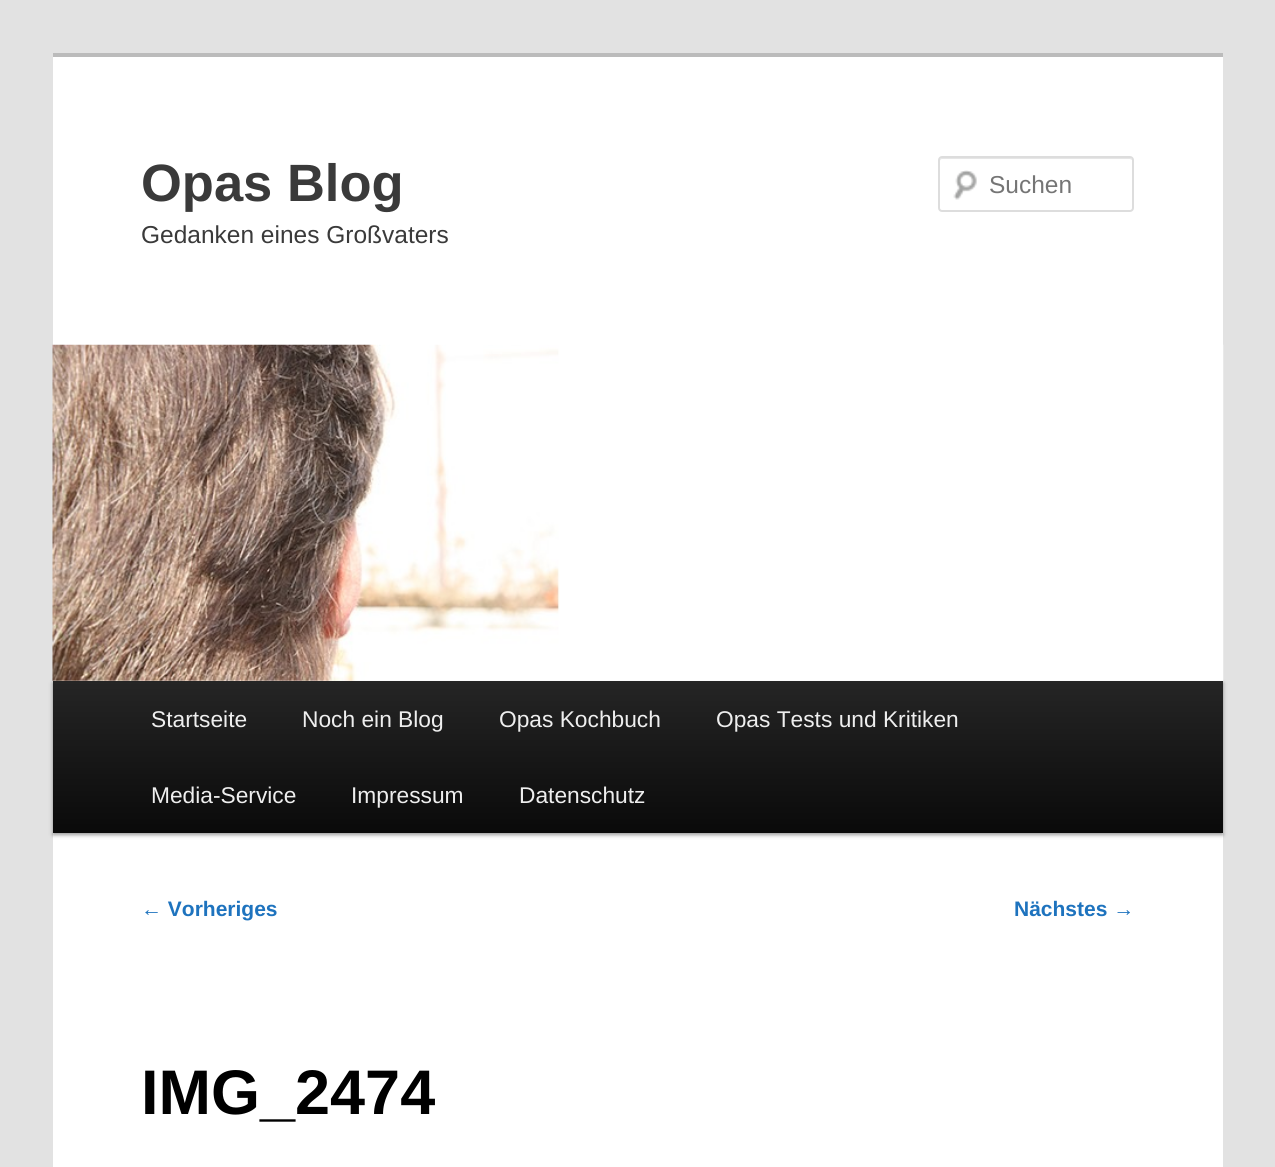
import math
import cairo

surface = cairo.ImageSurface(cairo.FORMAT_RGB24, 1275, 1167)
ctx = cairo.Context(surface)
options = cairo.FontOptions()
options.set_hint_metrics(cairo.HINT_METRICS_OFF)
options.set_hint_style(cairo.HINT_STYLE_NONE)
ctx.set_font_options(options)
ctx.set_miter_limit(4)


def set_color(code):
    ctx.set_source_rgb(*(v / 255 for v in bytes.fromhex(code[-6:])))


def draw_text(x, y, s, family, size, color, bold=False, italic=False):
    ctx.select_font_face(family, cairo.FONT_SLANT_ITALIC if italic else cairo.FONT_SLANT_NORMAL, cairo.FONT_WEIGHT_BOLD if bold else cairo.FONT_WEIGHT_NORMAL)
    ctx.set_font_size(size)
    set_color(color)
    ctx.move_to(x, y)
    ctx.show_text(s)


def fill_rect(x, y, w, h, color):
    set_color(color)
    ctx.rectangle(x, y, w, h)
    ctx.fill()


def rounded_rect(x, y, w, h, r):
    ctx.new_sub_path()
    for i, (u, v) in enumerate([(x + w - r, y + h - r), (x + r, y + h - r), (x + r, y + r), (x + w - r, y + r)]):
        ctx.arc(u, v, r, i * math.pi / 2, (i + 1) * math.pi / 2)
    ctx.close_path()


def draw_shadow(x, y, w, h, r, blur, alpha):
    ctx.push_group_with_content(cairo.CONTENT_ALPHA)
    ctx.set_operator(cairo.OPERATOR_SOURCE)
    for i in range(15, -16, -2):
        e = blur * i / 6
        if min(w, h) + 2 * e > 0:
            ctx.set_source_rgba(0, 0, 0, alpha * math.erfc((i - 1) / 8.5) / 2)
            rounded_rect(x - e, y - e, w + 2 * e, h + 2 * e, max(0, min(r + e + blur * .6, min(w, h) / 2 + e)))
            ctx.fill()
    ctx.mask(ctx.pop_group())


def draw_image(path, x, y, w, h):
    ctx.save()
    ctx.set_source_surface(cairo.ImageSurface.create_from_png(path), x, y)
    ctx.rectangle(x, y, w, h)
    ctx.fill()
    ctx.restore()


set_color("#e2e2e2")
ctx.paint()
fill_rect(53, 57, 1170, 1110, "#ffffff")
fill_rect(53, 53, 1170, 4, "#bbbbbb")
draw_text(141, 201, "Opas Blog", "Liberation Sans", 52.5, "#3a3a3a", bold=True)
draw_text(141, 243, "Gedanken eines Großvaters", "Liberation Sans", 24.5, "#3a3a3a")
draw_image("assets/img1.png", 953, 170, 24, 30)
set_color("#e6e6e6")
ctx.new_path()
ctx.move_to(942, 159)
ctx.line_to(1130, 159)
ctx.line_to(1132, 160)
ctx.line_to(1132, 161)
ctx.line_to(1132, 160)
ctx.curve_to(1132, 159, 1131, 158, 1130, 158)
ctx.line_to(942, 158)
ctx.curve_to(941, 158, 940, 159, 940, 160)
ctx.line_to(940, 161)
ctx.curve_to(940, 160, 941, 159, 942, 159)
ctx.close_path()
ctx.fill()
rounded_rect(939, 157, 194, 54, 3)
set_color("#dddddd")
ctx.stroke()
draw_text(989, 193, "Suchen", "Liberation Sans", 24.5, "#757575")
set_color("#000000")
draw_shadow(53, 683, 1170, 152, 0, 2, 0.4)
draw_image("assets/img2.png", 52, 344, 1172, 337)
gradient = cairo.LinearGradient(638, 681, 638, 833)
gradient.add_color_stop_rgba(0, 0.145, 0.145, 0.145, 1)
gradient.add_color_stop_rgba(1, 0.039, 0.039, 0.039, 1)
ctx.set_source(gradient)
ctx.rectangle(53, 681, 1170, 152)
ctx.fill()
draw_text(151, 727, "Startseite", "Liberation Sans", 22.75, "#eeeeee")
draw_text(302, 727, "Noch ein Blog", "Liberation Sans", 22.75, "#eeeeee")
draw_text(499, 727, "Opas Kochbuch", "Liberation Sans", 22.75, "#eeeeee")
draw_text(716, 727, "Opas Tests und Kritiken", "Liberation Sans", 22.75, "#eeeeee")
draw_text(151, 803, "Media-Service", "Liberation Sans", 22.75, "#eeeeee")
draw_text(351, 803, "Impressum", "Liberation Sans", 22.75, "#eeeeee")
draw_text(519, 803, "Datenschutz", "Liberation Sans", 22.75, "#eeeeee")
draw_text(141, 916, "← Vorheriges", "Liberation Sans", 21, "#1e73be", bold=True)
draw_text(1014, 916, "Nächstes →", "Liberation Sans", 21, "#1e73be", bold=True)
draw_text(141, 1114, "IMG_2474", "Liberation Sans", 63, "#000000", bold=True)
surface.write_to_png("output.png")
